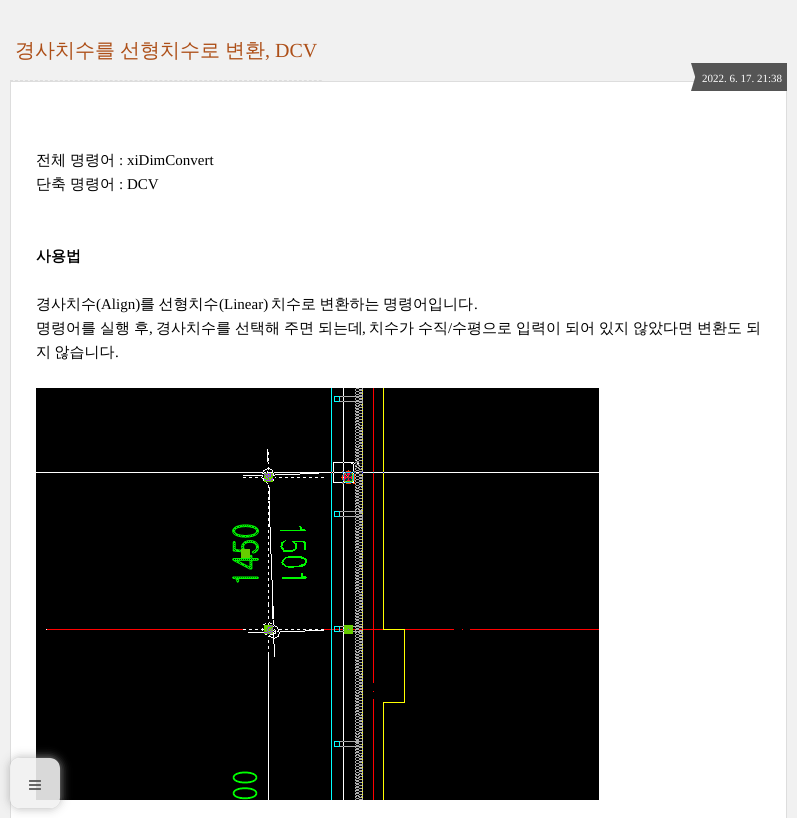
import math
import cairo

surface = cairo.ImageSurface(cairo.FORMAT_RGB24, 797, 818)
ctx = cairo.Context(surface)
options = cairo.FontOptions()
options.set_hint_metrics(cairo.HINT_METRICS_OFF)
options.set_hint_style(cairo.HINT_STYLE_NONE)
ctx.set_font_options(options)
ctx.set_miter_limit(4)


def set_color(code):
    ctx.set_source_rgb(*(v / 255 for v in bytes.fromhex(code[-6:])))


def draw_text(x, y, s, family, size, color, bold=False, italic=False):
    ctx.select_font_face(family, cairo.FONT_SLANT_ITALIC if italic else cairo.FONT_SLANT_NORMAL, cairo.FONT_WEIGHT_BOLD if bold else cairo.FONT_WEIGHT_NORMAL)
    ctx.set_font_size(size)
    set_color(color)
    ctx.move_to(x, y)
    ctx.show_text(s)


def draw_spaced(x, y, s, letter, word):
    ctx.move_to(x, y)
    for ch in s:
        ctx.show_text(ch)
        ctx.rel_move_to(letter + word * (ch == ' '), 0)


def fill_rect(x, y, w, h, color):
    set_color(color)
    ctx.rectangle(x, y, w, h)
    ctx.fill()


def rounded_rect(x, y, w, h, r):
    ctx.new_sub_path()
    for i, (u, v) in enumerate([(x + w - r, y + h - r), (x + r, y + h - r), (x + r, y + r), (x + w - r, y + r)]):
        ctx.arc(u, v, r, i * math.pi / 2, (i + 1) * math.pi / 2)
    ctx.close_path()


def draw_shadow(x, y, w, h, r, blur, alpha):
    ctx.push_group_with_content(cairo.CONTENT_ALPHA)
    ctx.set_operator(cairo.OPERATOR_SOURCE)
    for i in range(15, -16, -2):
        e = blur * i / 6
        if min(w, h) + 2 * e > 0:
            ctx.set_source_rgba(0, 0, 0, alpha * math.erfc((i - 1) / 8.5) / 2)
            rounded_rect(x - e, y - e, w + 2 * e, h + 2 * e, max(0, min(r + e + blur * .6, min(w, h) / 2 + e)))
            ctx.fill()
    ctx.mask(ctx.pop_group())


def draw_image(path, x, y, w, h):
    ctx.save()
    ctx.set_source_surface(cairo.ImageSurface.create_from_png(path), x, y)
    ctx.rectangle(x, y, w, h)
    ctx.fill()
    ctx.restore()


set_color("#f1f1f1")
ctx.paint()
ctx.new_path()
ctx.move_to(10, 80.5)
ctx.line_to(322, 80.5)
set_color("#dddddd")
ctx.set_line_width(1)
ctx.set_dash([3, 1.98])
ctx.stroke()
draw_text(15, 57, "경사치수를", "WenQuanYi Zen Hei Medium", 20, "#ad4f18")
draw_text(120, 57, "선형치수로", "WenQuanYi Zen Hei Medium", 20, "#ad4f18")
draw_text(225, 57, "변환", "WenQuanYi Zen Hei Medium", 20, "#ad4f18")
draw_text(265, 57, ", DCV", "Liberation Serif", 20, "#ad4f18")
set_color("#ffffff")
ctx.rectangle(10.5, 81.5, 776, 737)
ctx.fill_preserve()
set_color("#dddddd")
ctx.set_dash([])
ctx.stroke()
fill_rect(697, 63, 90, 28, "#555555")
ctx.new_path()
ctx.move_to(691, 63)
ctx.line_to(697, 63)
ctx.line_to(697, 83)
ctx.close_path()
ctx.fill()
ctx.new_path()
ctx.move_to(697, 91)
ctx.line_to(691, 91)
ctx.line_to(697, 71)
ctx.close_path()
ctx.fill()
draw_text(702, 82, "2022. 6. 17. 21:38", "Liberation Serif", 11, "#ffffff")
draw_text(36, 165, "전체", "WenQuanYi Zen Hei Medium", 15, "#000000")
draw_text(70, 165, "명령어", "WenQuanYi Zen Hei Medium", 15, "#000000")
draw_text(119, 165, ": xiDimConvert", "Liberation Serif", 15, "#000000")
draw_text(36, 189, "단축", "WenQuanYi Zen Hei Medium", 15, "#000000")
draw_text(70, 189, "명령어", "WenQuanYi Zen Hei Medium", 15, "#000000")
draw_text(119, 189, ": DCV", "Liberation Serif", 15, "#000000")
draw_text(36, 261, "사용법", "WenQuanYi Zen Hei", 15, "#000000", bold=True)
draw_text(36, 309, "경사치수", "WenQuanYi Zen Hei Medium", 15, "#000000")
draw_text(96, 309, "(Align)", "Liberation Serif", 15, "#000000")
ctx.select_font_face("WenQuanYi Zen Hei Medium")
draw_spaced(140, 309, "를 선형치수", 0, -1)
draw_text(219, 309, "(Linear)", "Liberation Serif", 15, "#000000")
ctx.select_font_face("WenQuanYi Zen Hei Medium")
draw_spaced(271, 309, "치수로 변환하는 명령어입니다", 0, -1)
draw_text(474, 309, ".", "Liberation Serif", 15, "#000000")
ctx.select_font_face("WenQuanYi Zen Hei Medium")
draw_spaced(36, 333, "명령어를 실행 후", 0, -0.5)
draw_text(149, 333, ",", "Liberation Serif", 15, "#000000")
ctx.select_font_face("WenQuanYi Zen Hei Medium")
draw_spaced(156, 333, "경사치수를 선택해 주면 되는데", 0, -0.5)
draw_text(362, 333, ",", "Liberation Serif", 15, "#000000")
ctx.select_font_face("WenQuanYi Zen Hei Medium")
draw_spaced(369, 333, "치수가 수직", 0, -0.5)
draw_text(448, 333, "/", "Liberation Serif", 15, "#000000")
ctx.select_font_face("WenQuanYi Zen Hei Medium")
draw_spaced(452, 333, "수평으로 입력이 되어 있지 않았다면 변환도 되", 0, -0.5)
draw_spaced(36, 357, "지 않습니다", 0, -1)
draw_text(115, 357, ".", "Liberation Serif", 15, "#000000")
draw_image("assets/img1.png", 36, 388, 563, 412)
ctx.save()
ctx.set_fill_rule(cairo.FILL_RULE_EVEN_ODD)
ctx.new_path()
ctx.move_to(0, 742)
ctx.line_to(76, 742)
ctx.line_to(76, 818)
ctx.line_to(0, 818)
ctx.close_path()
ctx.move_to(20, 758)
ctx.line_to(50, 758)
ctx.curve_to(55.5, 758, 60, 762.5, 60, 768)
ctx.line_to(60, 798)
ctx.curve_to(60, 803.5, 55.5, 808, 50, 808)
ctx.line_to(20, 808)
ctx.curve_to(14.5, 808, 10, 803.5, 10, 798)
ctx.line_to(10, 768)
ctx.curve_to(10, 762.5, 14.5, 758, 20, 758)
ctx.close_path()
ctx.clip()
set_color("#aaaaaa")
draw_shadow(10, 758, 50, 50, 10, 5, 0.9)
ctx.restore()
ctx.set_source_rgba(0.945, 0.945, 0.945, 0.9)
rounded_rect(10, 758, 50, 50, 10)
ctx.fill()
draw_image("assets/img2.png", 29, 780, 12, 10)
surface.write_to_png("output.png")
